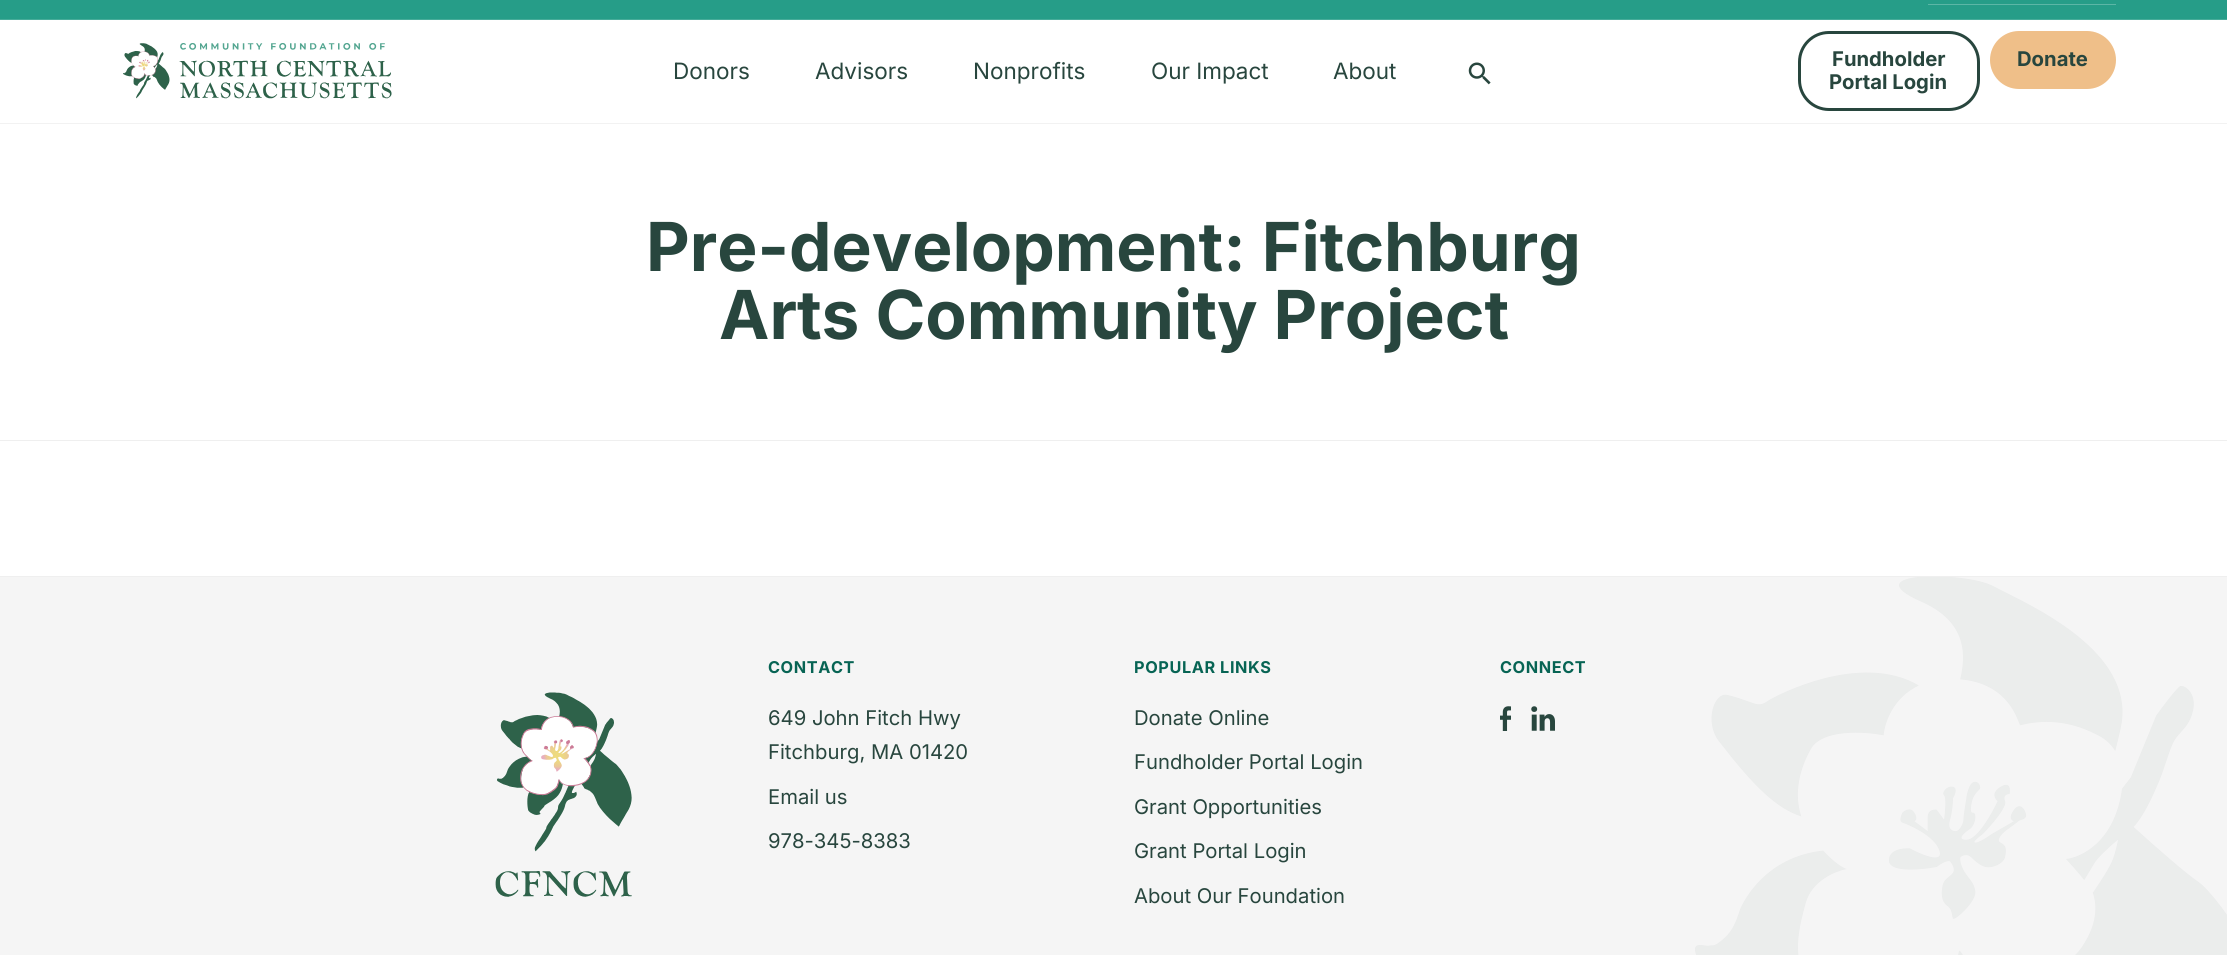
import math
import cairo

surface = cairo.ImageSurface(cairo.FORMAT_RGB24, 2227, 955)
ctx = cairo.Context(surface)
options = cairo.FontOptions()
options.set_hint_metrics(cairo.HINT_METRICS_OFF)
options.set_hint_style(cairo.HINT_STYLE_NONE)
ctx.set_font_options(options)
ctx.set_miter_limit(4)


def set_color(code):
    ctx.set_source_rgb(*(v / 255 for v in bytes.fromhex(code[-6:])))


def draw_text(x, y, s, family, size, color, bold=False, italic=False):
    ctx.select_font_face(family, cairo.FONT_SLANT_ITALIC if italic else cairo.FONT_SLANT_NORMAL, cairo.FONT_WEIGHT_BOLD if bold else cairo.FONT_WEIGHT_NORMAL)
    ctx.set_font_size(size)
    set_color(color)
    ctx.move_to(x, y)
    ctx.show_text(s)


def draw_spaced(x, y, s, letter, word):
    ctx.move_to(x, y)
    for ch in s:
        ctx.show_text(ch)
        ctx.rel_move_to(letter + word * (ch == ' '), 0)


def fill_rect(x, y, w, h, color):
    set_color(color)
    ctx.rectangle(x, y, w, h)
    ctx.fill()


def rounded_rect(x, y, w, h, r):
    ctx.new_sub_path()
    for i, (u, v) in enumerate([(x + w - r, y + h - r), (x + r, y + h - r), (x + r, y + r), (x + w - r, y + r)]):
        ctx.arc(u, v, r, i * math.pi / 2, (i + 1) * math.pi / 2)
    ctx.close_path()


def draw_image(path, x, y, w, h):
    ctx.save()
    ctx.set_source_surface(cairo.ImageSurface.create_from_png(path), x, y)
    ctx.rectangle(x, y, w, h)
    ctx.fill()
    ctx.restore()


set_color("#ffffff")
ctx.paint()
fill_rect(0, 123, 2227, 1, "#f2f2f2")
fill_rect(0, 0, 2227, 19, "#269d88")
fill_rect(0, 19, 2227, 1, "#47ac9a")
fill_rect(1928, 4, 188, 1, "#5cb6a6")
draw_image("assets/img1.png", 123, 43, 269, 56)
draw_text(673, 79, "Donors", "Inter", 22.5, "#28463e")
draw_text(815, 79, "Advisors", "Inter", 22.5, "#28463e")
draw_text(973, 79, "Nonprofits", "Inter", 22.5, "#28463e")
draw_text(1151, 79, "Our Impact", "Inter", 22.5, "#28463e")
draw_text(1333, 79, "About", "Inter", 22.5, "#28463e")
draw_image("assets/img2.png", 1468, 62, 23, 23)
rounded_rect(1799.5, 32.5, 179, 77, 29.5)
ctx.set_line_width(3)
ctx.stroke()
draw_text(1832, 66, "Fundholder", "Inter", 20.25, "#28463e", bold=True)
draw_text(1829, 89, "Portal Login", "Inter", 20.25, "#28463e", bold=True)
set_color("#efbf89")
rounded_rect(1991.5, 32.5, 123, 55, 27.5)
ctx.fill_preserve()
ctx.stroke()
draw_text(2017, 66, "Donate", "Inter", 20.25, "#28463e", bold=True)
fill_rect(0, 440, 2227, 1, "#efefef")
draw_text(646, 271, "Pre-development: Fitchburg", "Inter", 67.5, "#28463e", bold=True)
draw_text(719, 339, "Arts Community Project", "Inter", 67.5, "#28463e", bold=True)
fill_rect(0, 577, 2227, 378, "#f5f5f5")
draw_image("assets/img3.png", 1695, 577, 532, 378)
fill_rect(0, 576, 2227, 1, "#efefef")
ctx.set_font_size(16.25)
set_color("#076454")
draw_spaced(768, 673, "CONTACT", 0.6, 0)
draw_text(768, 725, "649 John Fitch Hwy", "Inter", 20.25, "#28463e")
draw_text(768, 759, "Fitchburg, MA 01420", "Inter", 20.25, "#28463e")
draw_text(768, 804, "Email us", "Inter", 20.25, "#28463e")
draw_text(768, 848, "978-345-8383", "Inter", 20.25, "#28463e")
ctx.select_font_face("Inter", cairo.FONT_SLANT_NORMAL, cairo.FONT_WEIGHT_BOLD)
ctx.set_font_size(16.25)
set_color("#076454")
draw_spaced(1134, 673, "POPULAR LINKS", 0.6, 0)
draw_text(1134, 725, "Donate Online", "Inter", 20.25, "#28463e")
draw_text(1134, 769, "Fundholder Portal Login", "Inter", 20.25, "#28463e")
draw_text(1134, 814, "Grant Opportunities", "Inter", 20.25, "#28463e")
draw_text(1134, 858, "Grant Portal Login", "Inter", 20.25, "#28463e")
draw_text(1134, 903, "About Our Foundation", "Inter", 20.25, "#28463e")
ctx.select_font_face("Inter", cairo.FONT_SLANT_NORMAL, cairo.FONT_WEIGHT_BOLD)
ctx.set_font_size(16.25)
set_color("#076454")
draw_spaced(1500, 673, "CONNECT", 0.6, 0)
draw_image("assets/img4.png", 1500, 706, 11, 25)
draw_image("assets/img5.png", 1531, 706, 24, 25)
draw_image("assets/img6.png", 495, 692, 137, 205)
surface.write_to_png("output.png")
